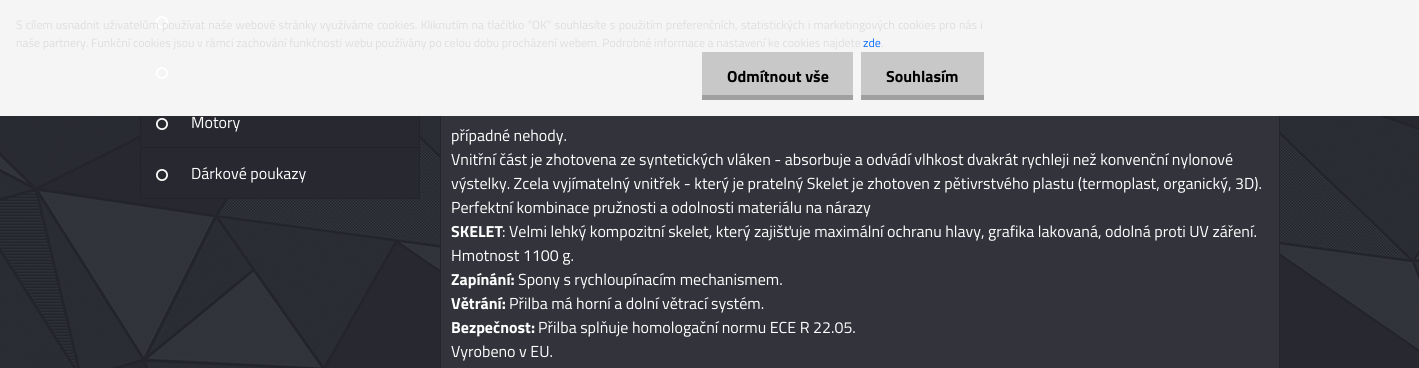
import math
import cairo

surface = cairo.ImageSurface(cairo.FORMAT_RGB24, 1419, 368)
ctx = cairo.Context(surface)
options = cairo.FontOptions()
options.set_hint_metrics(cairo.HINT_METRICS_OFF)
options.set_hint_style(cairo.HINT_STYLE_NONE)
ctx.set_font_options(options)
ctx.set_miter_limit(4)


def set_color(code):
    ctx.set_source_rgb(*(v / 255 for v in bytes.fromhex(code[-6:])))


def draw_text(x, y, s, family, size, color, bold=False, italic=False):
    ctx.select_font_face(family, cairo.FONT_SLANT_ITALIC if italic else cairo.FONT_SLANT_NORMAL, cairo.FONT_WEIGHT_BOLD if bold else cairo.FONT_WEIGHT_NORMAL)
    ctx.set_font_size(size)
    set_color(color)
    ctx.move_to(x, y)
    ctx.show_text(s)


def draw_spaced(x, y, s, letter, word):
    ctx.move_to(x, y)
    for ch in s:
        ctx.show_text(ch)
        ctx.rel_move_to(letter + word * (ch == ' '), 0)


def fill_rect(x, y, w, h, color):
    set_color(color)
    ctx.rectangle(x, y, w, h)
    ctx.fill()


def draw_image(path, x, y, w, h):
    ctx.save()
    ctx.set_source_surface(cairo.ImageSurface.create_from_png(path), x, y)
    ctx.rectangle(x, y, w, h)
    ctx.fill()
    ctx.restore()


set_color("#ffffff")
ctx.paint()
draw_image("assets/img1.png", 0, 0, 1419, 368)
fill_rect(141, 0, 210, 45, "#272830")
fill_rect(419, 0, 1, 199, "#22232b")
fill_rect(140, 45, 280, 1, "#22232b")
fill_rect(140, 0, 1, 46, "#22232b")
draw_image("assets/img2.png", 156, 16, 12, 12)
fill_rect(146, 46, 273, 50, "#272830")
fill_rect(140, 96, 280, 1, "#22232b")
fill_rect(140, 46, 1, 51, "#22232b")
draw_image("assets/img2.png", 156, 67, 12, 12)
fill_rect(141, 97, 278, 50, "#272830")
fill_rect(140, 147, 280, 1, "#22232b")
fill_rect(140, 97, 1, 51, "#22232b")
set_color("#32333b")
ctx.rectangle(440.5, -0.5, 839, 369)
ctx.fill_preserve()
set_color("#24242d")
ctx.set_line_width(1)
ctx.stroke()
fill_rect(451, 0, 818, 23, "#272830")
ctx.set_source_rgba(1, 1, 1, 0.95)
ctx.rectangle(0, 0, 1419, 116)
ctx.fill()
ctx.select_font_face("Titillium Web")
ctx.set_font_size(12)
set_color("#dedede")
draw_spaced(16, 29, "S cílem usnadnit uživatelům používat naše webové stránky využíváme cookies. Kliknutím na tlačítko \"OK\" souhlasíte s použitím preferenčních, statistických i marketingových cookies pro nás i", 0, 0.6)
draw_text(16, 47, "naše partnery. Funkční cookies jsou v rámci zachování funkčnosti webu používány po celou dobu procházení webem. Podrobné informace a nastavení ke cookies najdete", "Titillium Web", 12, "#dedede")
draw_text(863, 47, "zde", "Titillium Web", 12, "#0d6efd")
draw_text(881, 47, ".", "Titillium Web", 12, "#dedede")
fill_rect(702, 52, 151, 43, "#c8c8c8")
fill_rect(702, 95, 151, 5, "#a0a0a0")
draw_text(727, 82, "Odmítnout vše", "Titillium Web", 16, "#000000", bold=True)
fill_rect(861, 52, 123, 43, "#c8c8c8")
fill_rect(861, 95, 123, 5, "#a0a0a0")
draw_text(886, 82, "Souhlasím", "Titillium Web", 16, "#000000", bold=True)
draw_image("assets/img2.png", 156, 118, 12, 12)
draw_text(191, 128, "Motory", "Titillium Web", 16, "#ffffff")
fill_rect(227, 148, 192, 50, "#272830")
fill_rect(140, 198, 280, 1, "#22232b")
fill_rect(140, 148, 1, 51, "#22232b")
draw_image("assets/img2.png", 156, 169, 12, 12)
draw_text(191, 179, "Dárkové poukazy", "Titillium Web", 16, "#ffffff")
draw_text(451, 141, "případné nehody.", "Titillium Web", 16, "#ffffff")
draw_text(451, 165, "Vnitřní část je zhotovena ze syntetických vláken - absorbuje a odvádí vlhkost dvakrát rychleji než konvenční nylonové", "Titillium Web", 16, "#ffffff")
draw_text(451, 189, "výstelky. Zcela vyjímatelný vnitřek - který je pratelný Skelet je zhotoven z pětivrstvého plastu (termoplast, organický, 3D).", "Titillium Web", 16, "#ffffff")
draw_text(451, 213, "Perfektní kombinace pružnosti a odolnosti materiálu na nárazy", "Titillium Web", 16, "#ffffff")
draw_text(451, 237, "SKELET", "Titillium Web", 16, "#ffffff", bold=True)
draw_text(502, 237, ": Velmi lehký kompozitní skelet, který zajišťuje maximální ochranu hlavy, grafika lakovaná, odolná proti UV záření.", "Titillium Web", 16, "#ffffff")
draw_text(451, 261, "Hmotnost 1100 g.", "Titillium Web", 16, "#ffffff")
draw_text(451, 285, "Zapínání:", "Titillium Web", 16, "#ffffff", bold=True)
draw_text(518, 285, "Spony s rychloupínacím mechanismem.", "Titillium Web", 16, "#ffffff")
draw_text(451, 309, "Větrání:", "Titillium Web", 16, "#ffffff", bold=True)
draw_text(509, 309, "Přilba má horní a dolní větrací systém.", "Titillium Web", 16, "#ffffff")
draw_text(451, 333, "Bezpečnost:", "Titillium Web", 16, "#ffffff", bold=True)
draw_text(538, 333, "Přilba splňuje homologační normu ECE R 22.05.", "Titillium Web", 16, "#ffffff")
draw_text(451, 357, "Vyrobeno v EU.", "Titillium Web", 16, "#ffffff")
surface.write_to_png("output.png")
